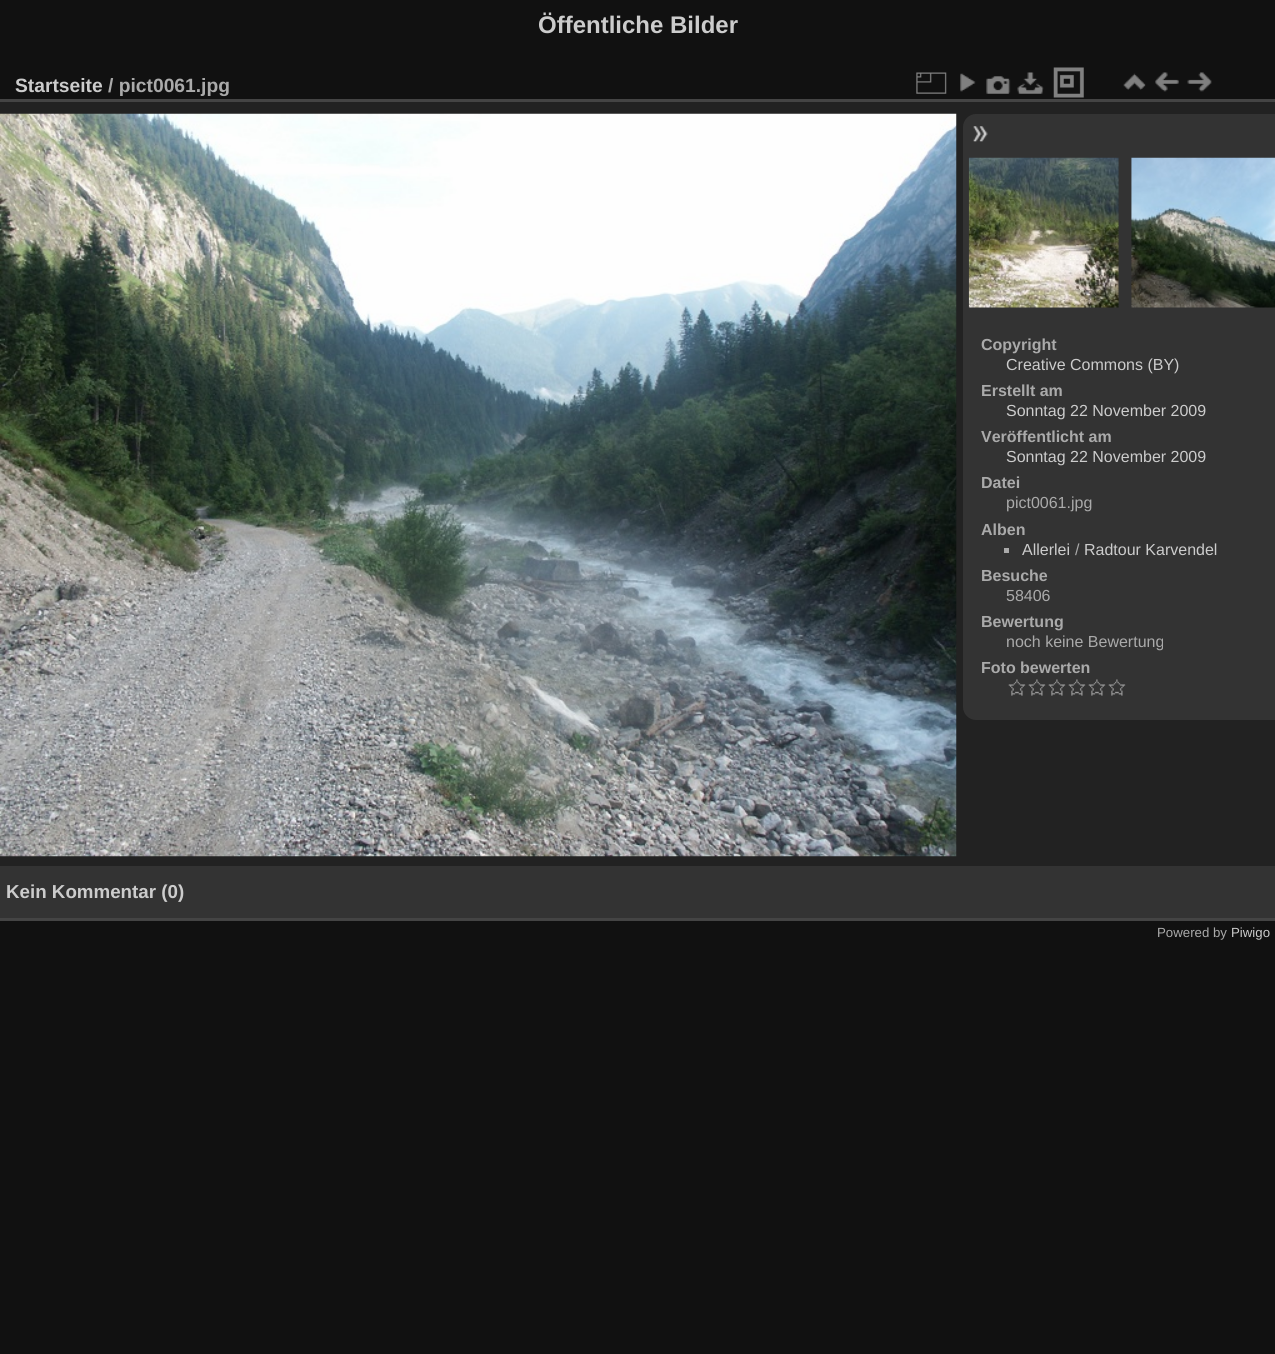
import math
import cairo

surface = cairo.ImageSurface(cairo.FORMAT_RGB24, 1275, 1354)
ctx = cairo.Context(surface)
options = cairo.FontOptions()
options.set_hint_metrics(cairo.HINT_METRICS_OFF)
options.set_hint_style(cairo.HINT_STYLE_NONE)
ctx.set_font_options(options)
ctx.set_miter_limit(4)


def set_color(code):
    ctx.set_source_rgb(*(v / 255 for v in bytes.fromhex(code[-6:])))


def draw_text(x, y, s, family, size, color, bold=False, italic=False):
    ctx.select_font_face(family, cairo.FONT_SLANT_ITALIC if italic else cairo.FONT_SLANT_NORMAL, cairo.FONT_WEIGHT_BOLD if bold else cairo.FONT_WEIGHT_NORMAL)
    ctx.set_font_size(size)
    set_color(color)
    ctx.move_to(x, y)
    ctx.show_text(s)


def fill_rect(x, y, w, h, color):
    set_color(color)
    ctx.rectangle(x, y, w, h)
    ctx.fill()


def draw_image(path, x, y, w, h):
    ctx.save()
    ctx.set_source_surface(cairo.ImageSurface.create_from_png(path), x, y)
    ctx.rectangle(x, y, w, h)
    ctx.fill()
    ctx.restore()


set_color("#111111")
ctx.paint()
draw_text(538, 33, "Öffentliche Bilder", "Liberation Sans", 24, "#cccccc", bold=True)
fill_rect(0, 102, 1275, 764, "#222222")
fill_rect(0, 918, 1275, 3, "#444444")
fill_rect(0, 99, 1275, 3, "#444444")
draw_text(15, 92, "Startseite", "Liberation Sans", 19.25, "#cccccc", bold=True)
draw_text(108, 92, "/ pict0061.jpg", "Liberation Sans", 19.25, "#aaaaaa", bold=True)
draw_image("assets/img1.png", 916, 72, 31, 22)
draw_image("assets/img2.png", 960, 73, 16, 19)
draw_image("assets/img3.png", 986, 76, 25, 18)
draw_image("assets/img4.png", 1017, 72, 27, 22)
draw_image("assets/img5.png", 1053, 67, 31, 31)
draw_image("assets/img6.png", 1123, 73, 23, 17)
draw_image("assets/img7.png", 1155, 72, 24, 20)
draw_image("assets/img8.png", 1187, 72, 25, 20)
draw_image("assets/img9.png", 0, 113, 957, 744)
set_color("#333333")
ctx.new_path()
ctx.move_to(976, 114)
ctx.line_to(1275, 114)
ctx.line_to(1275, 720)
ctx.line_to(976, 720)
ctx.curve_to(969, 720, 963, 714, 963, 707)
ctx.line_to(963, 127)
ctx.curve_to(963, 120, 969, 114, 976, 114)
ctx.close_path()
ctx.fill()
draw_image("assets/img10.png", 973, 126, 15, 16)
draw_image("assets/img11.png", 968, 157, 151, 151)
draw_image("assets/img12.png", 1131, 157, 144, 151)
draw_text(981, 350, "Copyright", "Liberation Sans", 16, "#aaaaaa", bold=True)
draw_text(1006, 370, "Creative Commons (BY)", "Liberation Sans", 16, "#cccccc")
draw_text(981, 396, "Erstellt am", "Liberation Sans", 16, "#aaaaaa", bold=True)
draw_text(1006, 416, "Sonntag 22 November 2009", "Liberation Sans", 16, "#cccccc")
draw_text(981, 442, "Veröffentlicht am", "Liberation Sans", 16, "#aaaaaa", bold=True)
draw_text(1006, 462, "Sonntag 22 November 2009", "Liberation Sans", 16, "#cccccc")
draw_text(981, 488, "Datei", "Liberation Sans", 16, "#aaaaaa", bold=True)
draw_text(1006, 508, "pict0061.jpg", "Liberation Sans", 16, "#aaaaaa")
draw_text(981, 535, "Alben", "Liberation Sans", 16, "#aaaaaa", bold=True)
fill_rect(1004, 548, 5, 5, "#aaaaaa")
draw_text(1022, 555, "Allerlei", "Liberation Sans", 16, "#cccccc")
draw_text(1075, 555, "/", "Liberation Sans", 16, "#aaaaaa")
draw_text(1084, 555, "Radtour Karvendel", "Liberation Sans", 16, "#cccccc")
draw_text(981, 581, "Besuche", "Liberation Sans", 16, "#aaaaaa", bold=True)
draw_text(1006, 601, "58406", "Liberation Sans", 16, "#aaaaaa")
draw_text(981, 627, "Bewertung", "Liberation Sans", 16, "#aaaaaa", bold=True)
draw_text(1006, 647, "noch keine Bewertung", "Liberation Sans", 16, "#aaaaaa")
draw_text(981, 673, "Foto bewerten", "Liberation Sans", 16, "#aaaaaa", bold=True)
draw_image("assets/img13.png", 1008, 679, 18, 17)
draw_image("assets/img14.png", 1028, 679, 18, 17)
draw_image("assets/img14.png", 1048, 679, 18, 17)
draw_image("assets/img14.png", 1068, 679, 18, 17)
draw_image("assets/img14.png", 1088, 679, 18, 17)
draw_image("assets/img14.png", 1108, 679, 18, 17)
fill_rect(0, 866, 1275, 52, "#333333")
draw_text(6, 898, "Kein Kommentar (0)", "Liberation Sans", 18.75, "#cccccc", bold=True)
draw_text(1157, 937, "Powered by", "Liberation Sans", 13.25, "#aaaaaa")
draw_text(1231, 937, "Piwigo", "Liberation Sans", 13.25, "#cccccc")
surface.write_to_png("output.png")
